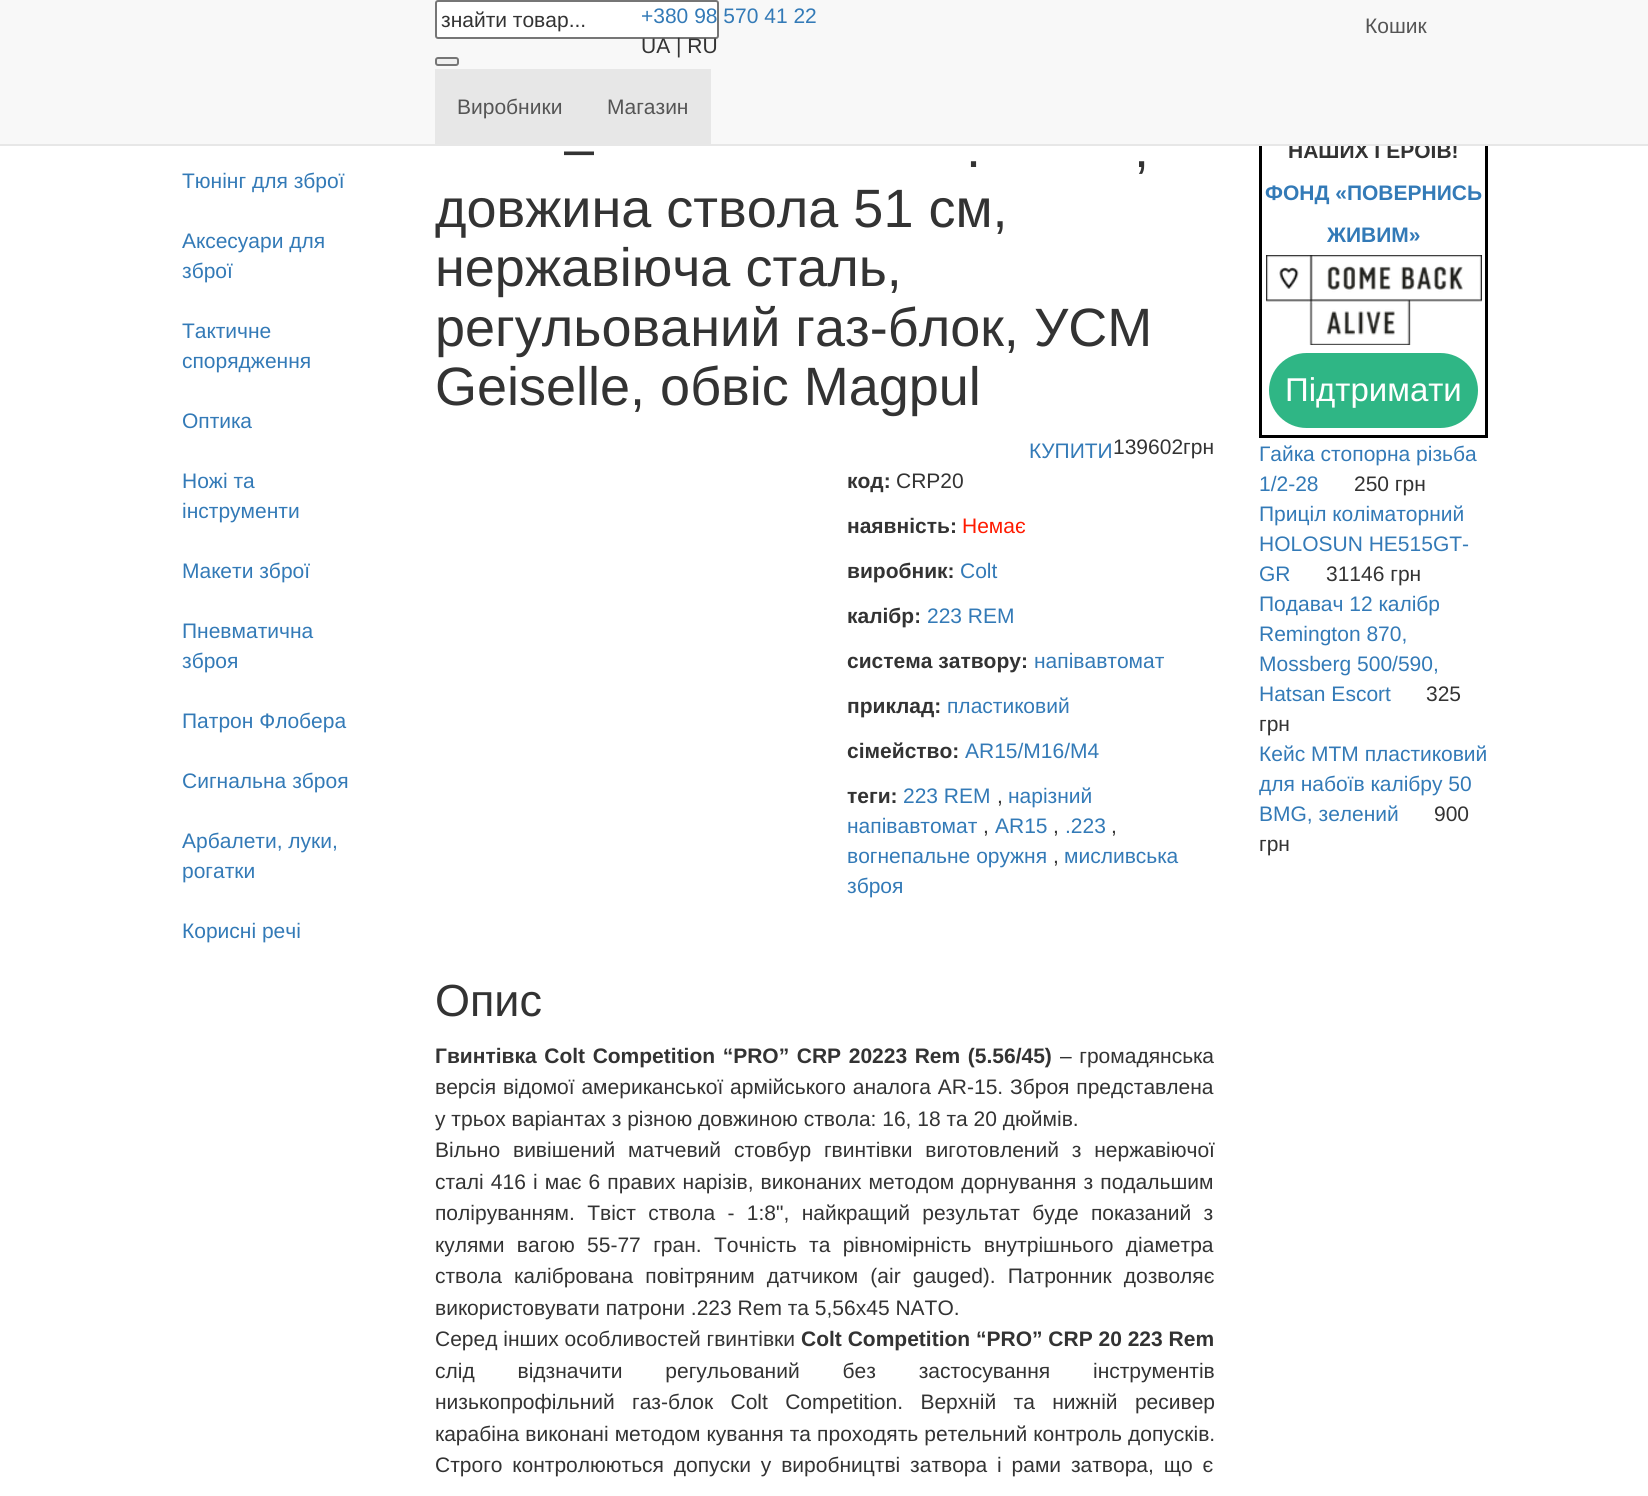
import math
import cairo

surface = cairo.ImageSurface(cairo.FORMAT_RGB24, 1648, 1496)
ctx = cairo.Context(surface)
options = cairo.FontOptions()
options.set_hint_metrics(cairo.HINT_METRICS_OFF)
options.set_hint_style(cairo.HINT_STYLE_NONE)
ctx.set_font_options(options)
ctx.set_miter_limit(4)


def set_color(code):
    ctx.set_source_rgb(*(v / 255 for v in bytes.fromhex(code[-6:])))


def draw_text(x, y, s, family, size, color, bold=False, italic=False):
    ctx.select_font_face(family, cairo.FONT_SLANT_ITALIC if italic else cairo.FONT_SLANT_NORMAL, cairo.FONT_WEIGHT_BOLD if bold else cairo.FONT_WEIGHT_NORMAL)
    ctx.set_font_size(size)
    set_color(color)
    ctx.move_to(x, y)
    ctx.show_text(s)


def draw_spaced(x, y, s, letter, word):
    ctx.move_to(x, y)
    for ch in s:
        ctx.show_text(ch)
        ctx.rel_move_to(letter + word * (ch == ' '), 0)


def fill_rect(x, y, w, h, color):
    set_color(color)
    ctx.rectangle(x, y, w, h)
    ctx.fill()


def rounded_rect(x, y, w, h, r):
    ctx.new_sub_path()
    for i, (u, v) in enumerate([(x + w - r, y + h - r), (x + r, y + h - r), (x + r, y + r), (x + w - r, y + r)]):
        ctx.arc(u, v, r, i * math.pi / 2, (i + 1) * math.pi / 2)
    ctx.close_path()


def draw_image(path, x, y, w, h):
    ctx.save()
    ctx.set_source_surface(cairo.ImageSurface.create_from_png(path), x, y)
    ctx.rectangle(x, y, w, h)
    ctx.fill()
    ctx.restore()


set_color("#ffffff")
ctx.paint()
ctx.rectangle(1260.5, 1.5, 226, 435)
set_color("#000000")
ctx.set_line_width(3)
ctx.stroke()
draw_text(1288, 158, "НАШИХ ГЕРОЇВ!", "Liberation Sans", 21, "#333333", bold=True)
fill_rect(0, 0, 1648, 144, "#f8f8f8")
fill_rect(0, 144, 1648, 2, "#e7e7e7")
set_color("#ffffff")
rounded_rect(436, 1, 282, 37, 2)
ctx.fill_preserve()
set_color("#767676")
ctx.set_line_width(2)
ctx.stroke()
draw_text(441, 27, "знайти товар...", "Liberation Sans", 21, "#333333")
set_color("#efefef")
rounded_rect(436, 58, 22, 7, 2)
ctx.fill_preserve()
set_color("#767676")
ctx.stroke()
draw_text(641, 23, "+380 98 570 41 22", "Liberation Sans", 21, "#337ab7")
draw_text(641, 53, "UA | RU", "Liberation Sans", 21, "#333333")
fill_rect(435, 69, 276, 75, "#e7e7e7")
draw_text(457, 114, "Виробники", "Liberation Sans", 21, "#555555")
draw_text(607, 114, "Магазин", "Liberation Sans", 21, "#555555")
draw_text(1365, 33, "Кошик", "Liberation Sans", 21, "#555555")
draw_text(182, 188, "Тюнінг для зброї", "Liberation Sans", 21, "#337ab7")
draw_text(182, 248, "Аксесуари для", "Liberation Sans", 21, "#337ab7")
draw_text(182, 278, "зброї", "Liberation Sans", 21, "#337ab7")
draw_text(182, 338, "Тактичне", "Liberation Sans", 21, "#337ab7")
draw_text(182, 368, "спорядження", "Liberation Sans", 21, "#337ab7")
draw_text(182, 428, "Оптика", "Liberation Sans", 21, "#337ab7")
draw_text(182, 488, "Ножі та", "Liberation Sans", 21, "#337ab7")
draw_text(182, 518, "інструменти", "Liberation Sans", 21, "#337ab7")
draw_text(182, 578, "Макети зброї", "Liberation Sans", 21, "#337ab7")
draw_text(182, 638, "Пневматична", "Liberation Sans", 21, "#337ab7")
draw_text(182, 668, "зброя", "Liberation Sans", 21, "#337ab7")
draw_text(182, 728, "Патрон Флобера", "Liberation Sans", 21, "#337ab7")
draw_text(182, 788, "Сигнальна зброя", "Liberation Sans", 21, "#337ab7")
draw_text(182, 848, "Арбалети, луки,", "Liberation Sans", 21, "#337ab7")
draw_text(182, 878, "рогатки", "Liberation Sans", 21, "#337ab7")
draw_text(182, 938, "Корисні речі", "Liberation Sans", 21, "#337ab7")
draw_text(564, 167, "–", "Liberation Sans", 54, "#333333")
draw_text(966, 167, ".", "Liberation Sans", 54, "#333333")
draw_text(1134, 167, ",", "Liberation Sans", 54, "#333333")
draw_text(435, 227, "довжина ствола 51 см,", "Liberation Sans", 54, "#333333")
draw_text(435, 286, "нержавіюча сталь,", "Liberation Sans", 54, "#333333")
draw_text(435, 346, "регульований газ-блок, УСМ", "Liberation Sans", 54, "#333333")
draw_text(435, 405, "Geiselle, обвіс Magpul", "Liberation Sans", 54, "#333333")
draw_text(1029, 458, "КУПИТИ", "Liberation Sans", 21, "#337ab7")
draw_text(1113, 454, "139602грн", "Liberation Sans", 21, "#333333")
draw_text(847, 488, "код:", "Liberation Sans", 21, "#333333", bold=True)
draw_text(896, 488, "CRP20", "Liberation Sans", 21, "#333333")
draw_text(847, 533, "наявність:", "Liberation Sans", 21, "#333333", bold=True)
draw_text(962, 533, "Немає", "Liberation Sans", 21, "#ff1a00")
draw_text(847, 578, "виробник:", "Liberation Sans", 21, "#333333", bold=True)
draw_text(960, 578, "Colt", "Liberation Sans", 21, "#337ab7")
draw_text(847, 623, "калібр:", "Liberation Sans", 21, "#333333", bold=True)
draw_text(927, 623, "223 REM", "Liberation Sans", 21, "#337ab7")
draw_text(847, 668, "система затвору:", "Liberation Sans", 21, "#333333", bold=True)
draw_text(1034, 668, "напівавтомат", "Liberation Sans", 21, "#337ab7")
draw_text(847, 713, "приклад:", "Liberation Sans", 21, "#333333", bold=True)
draw_text(947, 713, "пластиковий", "Liberation Sans", 21, "#337ab7")
draw_text(847, 758, "сімейство:", "Liberation Sans", 21, "#333333", bold=True)
draw_text(965, 758, "AR15/M16/M4", "Liberation Sans", 21, "#337ab7")
draw_text(847, 803, "теги:", "Liberation Sans", 21, "#333333", bold=True)
draw_text(903, 803, "223 REM", "Liberation Sans", 21, "#337ab7")
draw_text(997, 803, ",", "Liberation Sans", 21, "#333333")
draw_text(1008, 803, "нарізний", "Liberation Sans", 21, "#337ab7")
draw_text(847, 833, "напівавтомат", "Liberation Sans", 21, "#337ab7")
draw_text(983, 833, ",", "Liberation Sans", 21, "#333333")
draw_text(995, 833, "AR15", "Liberation Sans", 21, "#337ab7")
draw_text(1053, 833, ",", "Liberation Sans", 21, "#333333")
draw_text(1065, 833, ".223", "Liberation Sans", 21, "#337ab7")
draw_text(1111, 833, ",", "Liberation Sans", 21, "#333333")
draw_text(847, 863, "вогнепальне оружня", "Liberation Sans", 21, "#337ab7")
draw_text(1053, 863, ",", "Liberation Sans", 21, "#333333")
draw_text(1064, 863, "мисливська", "Liberation Sans", 21, "#337ab7")
draw_text(847, 893, "зброя", "Liberation Sans", 21, "#337ab7")
draw_text(435, 1016, "Опис", "Liberation Sans", 45, "#333333")
ctx.select_font_face("Liberation Sans", cairo.FONT_SLANT_NORMAL, cairo.FONT_WEIGHT_BOLD)
ctx.set_font_size(21)
draw_spaced(435, 1063, "Гвинтівка Colt Competition “PRO” CRP 20223 Rem (5.56/45)", 0, 1.75)
ctx.select_font_face("Liberation Sans")
draw_spaced(1060, 1063, "– громадянська", 0, 1.75)
draw_spaced(435, 1094, "версія відомої американської армійського аналога AR-15. Зброя представлена", 0, 1)
draw_text(435, 1126, "у трьох варіантах з різною довжиною ствола: 16, 18 та 20 дюймів.", "Liberation Sans", 21, "#333333")
draw_spaced(435, 1157, "Вільно вивішений матчевий стовбур гвинтівки виготовлений з нержавіючої", 0, 7)
draw_spaced(435, 1189, "сталі 416 і має 6 правих нарізів, виконаних методом дорнування з подальшим", 0, 1.25)
draw_spaced(435, 1220, "поліруванням. Твіст ствола - 1:8\", найкращий результат буде показаний з", 0, 6.5)
draw_spaced(435, 1252, "кулями вагою 55-77 гран. Точність та рівномірність внутрішнього діаметра", 0, 6.5)
draw_spaced(435, 1283, "ствола калібрована повітряним датчиком (air gauged). Патронник дозволяє", 0, 6.25)
draw_text(435, 1315, "використовувати патрони .223 Rem та 5,56х45 NATO.", "Liberation Sans", 21, "#333333")
draw_text(435, 1346, "Серед інших особливостей гвинтівки", "Liberation Sans", 21, "#333333")
draw_text(801, 1346, "Colt Competition “PRO” CRP 20 223 Rem", "Liberation Sans", 21, "#333333", bold=True)
ctx.select_font_face("Liberation Sans")
draw_spaced(435, 1378, "слід відзначити регульований без застосування інструментів", 0, 37)
draw_spaced(435, 1409, "низькопрофільний газ-блок Colt Competition. Верхній та нижній ресивер", 0, 11.5)
draw_spaced(435, 1441, "карабіна виконані методом кування та проходять ретельний контроль допусків.", 0, 0.25)
draw_spaced(435, 1472, "Строго контролюються допуски у виробництві затвора і рами затвора, що є", 0, 4)
draw_text(1265, 200, "ФОНД «ПОВЕРНИСЬ", "Liberation Sans", 21, "#337ab7", bold=True)
draw_text(1327, 242, "ЖИВИМ»", "Liberation Sans", 21, "#337ab7", bold=True)
draw_image("assets/img1.png", 1266, 255, 216, 90)
set_color("#2fb685")
rounded_rect(1269, 353, 209, 75, 37.5)
ctx.fill()
draw_text(1285, 401, "Підтримати", "Liberation Sans", 33, "#ffffff")
draw_text(1259, 461, "Гайка стопорна різьба", "Liberation Sans", 21, "#337ab7")
draw_text(1259, 491, "1/2-28", "Liberation Sans", 21, "#337ab7")
draw_text(1354, 491, "250 грн", "Liberation Sans", 21, "#333333")
draw_text(1259, 521, "Приціл коліматорний", "Liberation Sans", 21, "#337ab7")
draw_text(1259, 551, "HOLOSUN HE515GT-", "Liberation Sans", 21, "#337ab7")
draw_text(1259, 581, "GR", "Liberation Sans", 21, "#337ab7")
draw_text(1326, 581, "31146 грн", "Liberation Sans", 21, "#333333")
draw_text(1259, 611, "Подавач 12 калібр", "Liberation Sans", 21, "#337ab7")
draw_text(1259, 641, "Remington 870,", "Liberation Sans", 21, "#337ab7")
draw_text(1259, 671, "Mossberg 500/590,", "Liberation Sans", 21, "#337ab7")
draw_text(1259, 701, "Hatsan Escort", "Liberation Sans", 21, "#337ab7")
draw_text(1426, 701, "325", "Liberation Sans", 21, "#333333")
draw_text(1259, 731, "грн", "Liberation Sans", 21, "#333333")
draw_text(1259, 761, "Кейс MTM пластиковий", "Liberation Sans", 21, "#337ab7")
draw_text(1259, 791, "для набоїв калібру 50", "Liberation Sans", 21, "#337ab7")
draw_text(1259, 821, "BMG, зелений", "Liberation Sans", 21, "#337ab7")
draw_text(1434, 821, "900", "Liberation Sans", 21, "#333333")
draw_text(1259, 851, "грн", "Liberation Sans", 21, "#333333")
surface.write_to_png("output.png")
